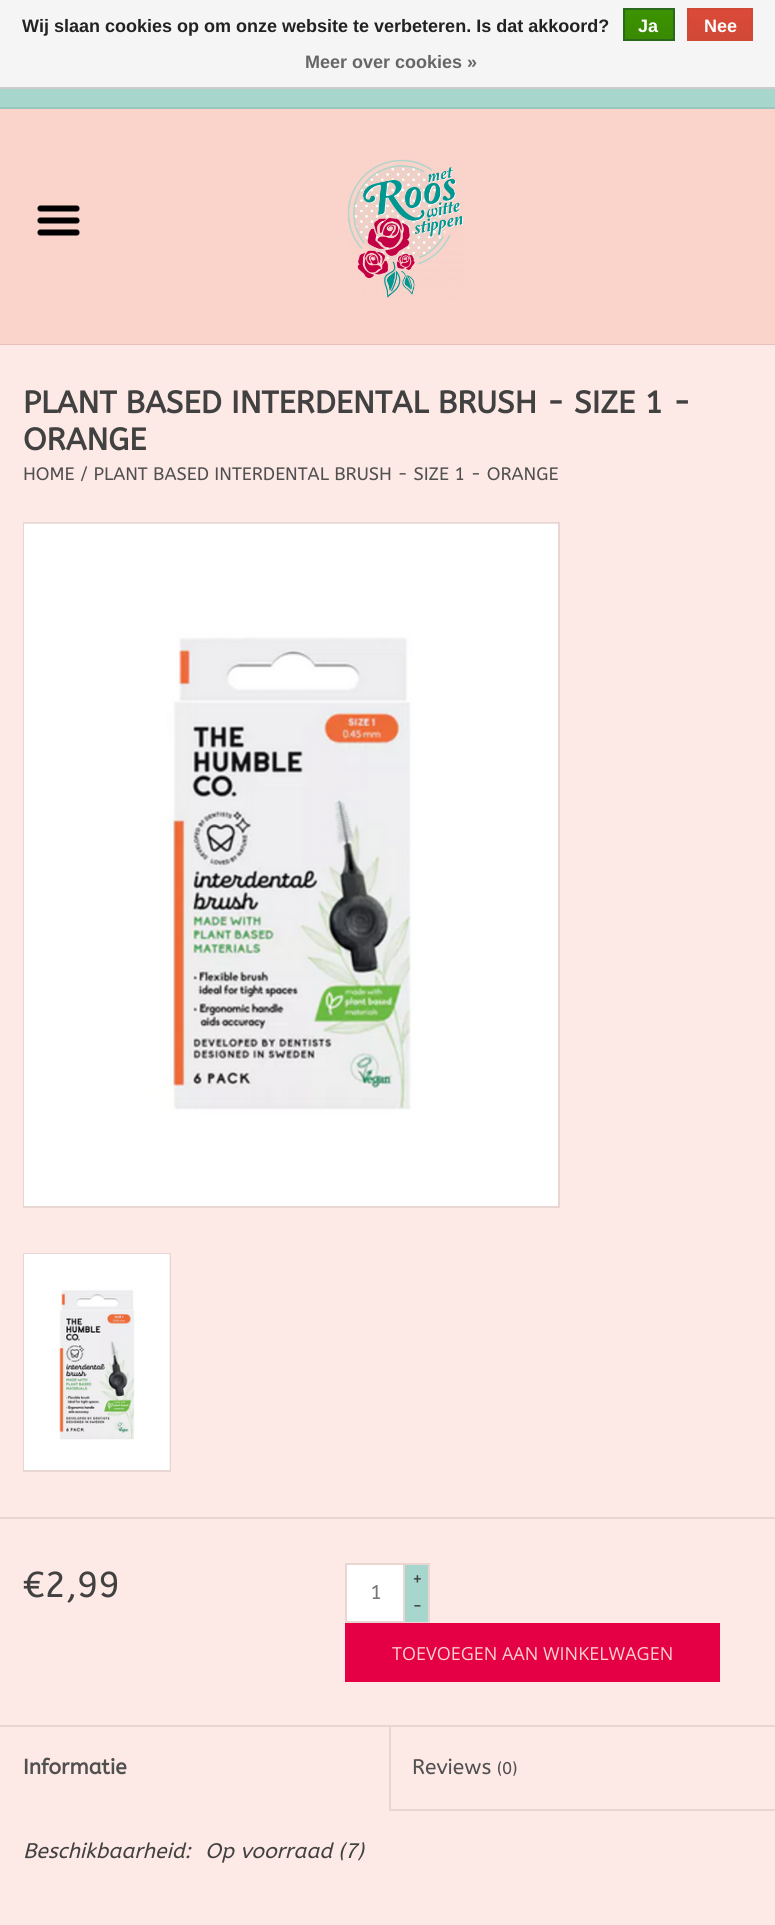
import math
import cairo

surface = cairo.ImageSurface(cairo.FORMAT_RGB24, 775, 1925)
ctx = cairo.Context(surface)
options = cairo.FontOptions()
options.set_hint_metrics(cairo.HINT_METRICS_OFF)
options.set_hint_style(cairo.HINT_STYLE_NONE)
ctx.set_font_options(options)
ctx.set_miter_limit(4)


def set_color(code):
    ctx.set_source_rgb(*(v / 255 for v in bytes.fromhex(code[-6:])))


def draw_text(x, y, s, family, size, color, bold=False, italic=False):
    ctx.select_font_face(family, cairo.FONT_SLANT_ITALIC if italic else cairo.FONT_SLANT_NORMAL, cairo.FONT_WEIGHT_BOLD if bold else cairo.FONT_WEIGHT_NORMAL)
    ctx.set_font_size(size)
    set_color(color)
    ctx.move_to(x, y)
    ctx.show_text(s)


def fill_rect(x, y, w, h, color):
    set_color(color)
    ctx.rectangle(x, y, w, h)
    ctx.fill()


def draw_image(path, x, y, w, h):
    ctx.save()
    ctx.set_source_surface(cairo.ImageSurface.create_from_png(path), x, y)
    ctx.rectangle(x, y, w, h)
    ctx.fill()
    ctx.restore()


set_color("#fad3cb")
ctx.paint()
fill_rect(0, 0, 775, 87, "#f5f5f5")
fill_rect(0, 87, 775, 2, "#cccccc")
draw_text(22, 32, "Wij slaan cookies op om onze website te verbeteren. Is dat akkoord?", "Liberation Sans", 18, "#222222", bold=True)
gradient = cairo.LinearGradient(649, 9, 649, 39)
gradient.add_color_stop_rgba(0, 0.235, 0.576, 0, 1)
gradient.add_color_stop_rgba(1, 0.224, 0.541, 0, 1)
ctx.set_source(gradient)
ctx.rectangle(625, 10, 48, 29)
ctx.fill()
ctx.rectangle(624, 9, 50, 31)
set_color("#29691d")
ctx.stroke()
draw_text(638, 32, "Ja", "Liberation Sans", 18, "#ffffff", bold=True)
gradient = cairo.LinearGradient(720, 9, 720, 39)
gradient.add_color_stop_rgba(0, 0.863, 0.29, 0.22, 1)
gradient.add_color_stop_rgba(1, 0.82, 0.282, 0.212, 1)
ctx.set_source(gradient)
ctx.rectangle(689, 10, 62, 29)
ctx.fill()
ctx.rectangle(688, 9, 64, 31)
set_color("#d14836")
ctx.stroke()
draw_text(704, 32, "Nee", "Liberation Sans", 18, "#ffffff", bold=True)
draw_text(305, 68, "Meer over cookies »", "Liberation Sans", 18, "#666666", bold=True)
fill_rect(0, 89, 775, 18, "#a6d6cc")
fill_rect(0, 107, 775, 2, "#9ac7bd")
fill_rect(0, 344, 775, 1, "#e6c2ba")
draw_image("assets/img1.png", 347, 159, 117, 139)
draw_image("assets/img2.png", 37, 205, 43, 31)
fill_rect(0, 345, 775, 1580, "#fde9e5")
draw_text(23, 413, "PLANT BASED INTERDENTAL BRUSH - SIZE 1 -", "ABeeZee", 31, "#414141", bold=True)
draw_text(23, 450, "ORANGE", "ABeeZee", 31, "#414141", bold=True)
draw_text(23, 480, "HOME / PLANT BASED INTERDENTAL BRUSH - SIZE 1 - ORANGE", "ABeeZee", 18, "#505050")
ctx.rectangle(24, 523, 535, 684)
set_color("#e8d6d2")
ctx.stroke()
draw_image("assets/img3.png", 24, 523, 534, 683)
ctx.rectangle(24, 1254, 146, 217)
ctx.stroke()
fill_rect(169, 1254, 1, 216, "#f5e2de")
draw_image("assets/img4.png", 24, 1254, 146, 216)
fill_rect(0, 1517, 775, 2, "#e8d6d2")
draw_text(23, 1597, "€2,99", "ABeeZee", 36, "#414141")
set_color("#ffffff")
ctx.rectangle(346, 1564, 58, 58)
ctx.fill_preserve()
set_color("#e8d6d2")
ctx.stroke()
draw_text(370, 1599, "1", "ABeeZee", 20, "#777777")
fill_rect(405, 1565, 23, 57, "#a6d6cc")
fill_rect(405, 1563, 24, 2, "#e8d6d2")
fill_rect(428, 1563, 2, 60, "#e8d6d2")
fill_rect(405, 1622, 24, 1, "#e8d6d2")
draw_text(412, 1585, "+", "ABeeZee", 18, "#414141")
draw_text(412, 1612, "-", "ABeeZee", 18, "#414141")
fill_rect(345, 1623, 375, 59, "#e50046")
draw_text(392, 1660, "TOEVOEGEN AAN WINKELWAGEN", "Open Sans", 18, "#fad3cb")
fill_rect(0, 1725, 775, 2, "#e8d6d2")
draw_text(23, 1774, "Informatie", "ABeeZee", 21, "#505050", bold=True)
fill_rect(389, 1809, 386, 2, "#e8d6d2")
fill_rect(389, 1727, 2, 84, "#e8d6d2")
draw_text(412, 1774, "Reviews", "ABeeZee", 21, "#505050")
draw_text(497, 1774, "(0)", "ABeeZee", 17, "#505050")
draw_text(23, 1858, "Beschikbaarheid:", "ABeeZee", 21, "#414141", italic=True)
draw_text(205, 1858, "Op voorraad (7)", "ABeeZee", 21, "#414141", italic=True)
surface.write_to_png("output.png")
